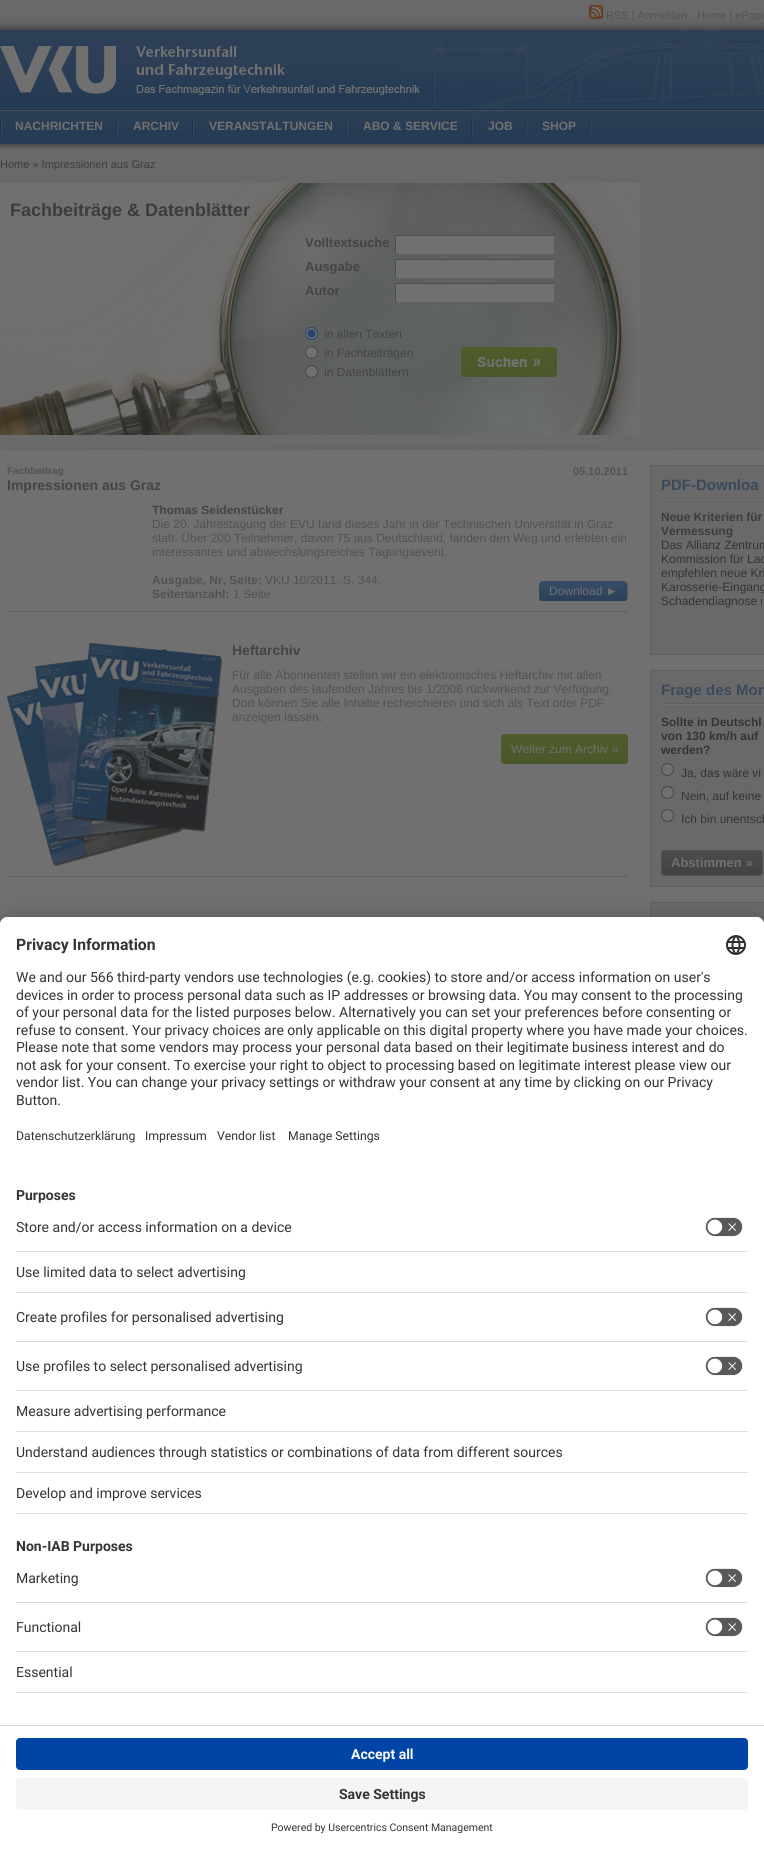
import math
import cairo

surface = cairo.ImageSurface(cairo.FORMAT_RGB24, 764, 1850)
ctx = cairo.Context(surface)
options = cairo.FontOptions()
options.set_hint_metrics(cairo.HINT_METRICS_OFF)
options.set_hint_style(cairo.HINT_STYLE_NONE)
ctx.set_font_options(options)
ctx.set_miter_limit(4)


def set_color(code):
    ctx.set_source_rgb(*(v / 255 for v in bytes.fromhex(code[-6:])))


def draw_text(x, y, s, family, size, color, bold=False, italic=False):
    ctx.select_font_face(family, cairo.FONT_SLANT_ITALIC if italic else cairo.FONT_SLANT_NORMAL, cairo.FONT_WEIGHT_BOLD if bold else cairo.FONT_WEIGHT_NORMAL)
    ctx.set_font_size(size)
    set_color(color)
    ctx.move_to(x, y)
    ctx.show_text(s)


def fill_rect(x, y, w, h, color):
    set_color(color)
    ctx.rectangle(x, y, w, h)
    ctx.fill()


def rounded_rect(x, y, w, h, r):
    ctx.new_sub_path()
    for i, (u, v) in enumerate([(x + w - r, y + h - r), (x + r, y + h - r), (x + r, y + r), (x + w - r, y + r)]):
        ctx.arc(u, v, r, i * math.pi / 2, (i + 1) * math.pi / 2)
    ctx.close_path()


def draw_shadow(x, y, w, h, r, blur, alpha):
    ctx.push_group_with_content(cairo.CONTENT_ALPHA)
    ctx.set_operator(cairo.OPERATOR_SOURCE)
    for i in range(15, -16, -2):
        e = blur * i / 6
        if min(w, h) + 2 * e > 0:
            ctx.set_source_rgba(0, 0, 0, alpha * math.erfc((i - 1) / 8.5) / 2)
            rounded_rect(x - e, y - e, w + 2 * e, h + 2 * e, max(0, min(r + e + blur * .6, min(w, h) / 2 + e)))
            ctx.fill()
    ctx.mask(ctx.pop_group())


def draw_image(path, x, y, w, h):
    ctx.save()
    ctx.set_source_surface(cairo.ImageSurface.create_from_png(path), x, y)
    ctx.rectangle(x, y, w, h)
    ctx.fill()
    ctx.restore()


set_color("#707070")
ctx.paint()
draw_image("assets/img1.png", 0, 0, 764, 153)
draw_image("assets/img2.png", 589, 5, 14, 14)
draw_text(606, 19, "RSS | Anmelden", "Liberation Sans", 11, "#525252")
draw_text(697, 19, "Home | ePape", "Liberation Sans", 11, "#525252")
draw_image("assets/img3.png", 0, 31, 764, 77)
draw_image("assets/img4.png", 0, 115, 2, 22)
draw_image("assets/img4.png", 116, 116, 2, 22)
draw_text(15, 130, "NACHRICHTEN", "Liberation Sans", 12, "#707070", bold=True)
draw_image("assets/img4.png", 192, 116, 2, 22)
draw_text(133, 130, "ARCHIV", "Liberation Sans", 12, "#707070", bold=True)
draw_image("assets/img4.png", 346, 116, 2, 22)
draw_text(209, 130, "VERANSTALTUNGEN", "Liberation Sans", 12, "#707070", bold=True)
draw_image("assets/img4.png", 471, 116, 2, 22)
draw_text(363, 130, "ABO & SERVICE", "Liberation Sans", 12, "#707070", bold=True)
draw_image("assets/img4.png", 525, 116, 2, 22)
draw_text(488, 130, "JOB", "Liberation Sans", 12, "#707070", bold=True)
draw_image("assets/img4.png", 589, 116, 2, 22)
draw_text(542, 130, "SHOP", "Liberation Sans", 12, "#707070", bold=True)
fill_rect(0, 153, 764, 181, "#696969")
draw_image("assets/img5.png", 0, 334, 764, 116)
draw_text(0, 168, "Home » Impressionen aus Graz", "Liberation Sans", 11, "#3c3c3c")
draw_image("assets/img6.png", 0, 183, 640, 252)
draw_text(10, 216, "Fachbeiträge & Datenblätter", "Liberation Sans", 18, "#3c3c3c", bold=True)
draw_text(305, 247, "Volltextsuche", "Liberation Sans", 13, "#444444", bold=True)
fill_rect(396, 236, 158, 18, "#707070")
fill_rect(395, 235, 159, 1, "#4e4e4e")
fill_rect(395, 235, 1, 19, "#4e4e4e")
draw_text(305, 271, "Ausgabe", "Liberation Sans", 13, "#444444", bold=True)
fill_rect(396, 260, 158, 18, "#707070")
fill_rect(395, 259, 159, 1, "#4e4e4e")
fill_rect(395, 259, 1, 19, "#4e4e4e")
draw_text(305, 295, "Autor", "Liberation Sans", 13, "#444444", bold=True)
fill_rect(396, 284, 158, 18, "#707070")
fill_rect(395, 283, 159, 1, "#4e4e4e")
fill_rect(395, 283, 1, 19, "#4e4e4e")
set_color("#707070")
ctx.new_path()
ctx.arc(311.5, 333.5, 6, 0, 2 * math.pi)
ctx.fill_preserve()
set_color("#244770")
ctx.set_line_width(1)
ctx.stroke()
ctx.arc(311.5, 333.5, 4, 0, 2 * math.pi)
ctx.fill()
draw_text(324, 338, "in allen Texten", "Liberation Sans", 12, "#444444")
set_color("#707070")
ctx.new_path()
ctx.arc(311.5, 352.5, 6, 0, 2 * math.pi)
ctx.fill_preserve()
set_color("#474747")
ctx.stroke()
draw_text(324, 357, "in Fachbeiträgen", "Liberation Sans", 12, "#444444")
set_color("#707070")
ctx.new_path()
ctx.arc(311.5, 371.5, 6, 0, 2 * math.pi)
ctx.fill_preserve()
set_color("#474747")
ctx.stroke()
draw_text(324, 376, "in Datenblättern", "Liberation Sans", 12, "#444444")
draw_image("assets/img7.png", 461, 347, 96, 30)
fill_rect(7, 611, 621, 1, "#606060")
draw_text(7, 474, "Fachbeitrag", "Liberation Sans", 10, "#525252", bold=True)
draw_text(573, 475, "05.10.2011", "Liberation Sans", 11, "#525252", bold=True)
draw_text(7, 490, "Impressionen aus Graz", "Liberation Sans", 14, "#444444", bold=True)
draw_text(152, 514, "Thomas Seidenstücker", "Liberation Sans", 12, "#444444", bold=True)
draw_text(152, 528, "Die 20. Jahrestagung der EVU fand dieses Jahr in der Technischen Universität in Graz", "Liberation Sans", 12, "#525252")
draw_text(152, 542, "statt. Über 200 Teilnehmer, davon 75 aus Deutschland, fanden den Weg und erlebten ein", "Liberation Sans", 12, "#525252")
draw_text(152, 556, "interessantes und abwechslungsreiches Tagungsevent.", "Liberation Sans", 12, "#525252")
draw_text(152, 584, "Ausgabe, Nr, Seite:", "Liberation Sans", 12, "#525252", bold=True)
draw_text(265, 584, "VKU 10/2011. S. 344.", "Liberation Sans", 12, "#525252")
draw_text(152, 598, "Seitenanzahl:", "Liberation Sans", 12, "#525252", bold=True)
draw_text(233, 598, "1 Seite", "Liberation Sans", 12, "#525252")
draw_image("assets/img8.png", 539, 581, 79, 20)
draw_image("assets/img9.png", 618, 581, 10, 20)
draw_text(549, 595, "Download ►", "Liberation Sans", 12, "#707070")
fill_rect(7, 876, 621, 1, "#606060")
draw_image("assets/img10.png", 7, 642, 215, 224)
draw_text(232, 655, "Heftarchiv", "Liberation Sans", 14, "#444444", bold=True)
draw_text(232, 679, "Für alle Abonnenten stellen wir ein elektronisches Heftarchiv mit allen", "Liberation Sans", 12, "#525252")
draw_text(232, 693, "Ausgaben des laufenden Jahres bis 1/2006 rückwirkend zur Verfügung.", "Liberation Sans", 12, "#525252")
draw_text(232, 707, "Dort können Sie alle Inhalte recherchieren und sich als Text oder PDF", "Liberation Sans", 12, "#525252")
draw_text(232, 721, "anzeigen lassen.", "Liberation Sans", 12, "#525252")
draw_image("assets/img11.png", 501, 734, 117, 30)
draw_image("assets/img12.png", 618, 734, 10, 30)
draw_text(511, 753, "Weiter zum Archiv »", "Liberation Sans", 12, "#707070")
set_color("#696969")
ctx.rectangle(650.5, 465.5, 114, 189)
ctx.fill_preserve()
set_color("#606060")
ctx.stroke()
fill_rect(661, 499, 103, 1, "#707070")
fill_rect(661, 498, 103, 1, "#606060")
draw_text(661, 490, "PDF-Downloa", "Liberation Sans", 15, "#3b4a5b", bold=True)
draw_text(661, 521, "Neue Kriterien für", "Liberation Sans", 12, "#3c3c3c", bold=True)
draw_text(661, 535, "Vermessung", "Liberation Sans", 12, "#3c3c3c", bold=True)
draw_text(661, 549, "Das Allianz Zentrum", "Liberation Sans", 12, "#343434")
draw_text(661, 563, "Kommission für Lac", "Liberation Sans", 12, "#343434")
draw_text(661, 577, "empfehlen neue Kri", "Liberation Sans", 12, "#343434")
draw_text(661, 591, "Karosserie-Eingang", "Liberation Sans", 12, "#343434")
draw_text(661, 605, "Schadendiagnose i", "Liberation Sans", 12, "#343434")
set_color("#696969")
ctx.rectangle(650.5, 670.5, 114, 216)
ctx.fill_preserve()
set_color("#606060")
ctx.stroke()
fill_rect(661, 704, 103, 1, "#707070")
fill_rect(661, 703, 103, 1, "#606060")
draw_text(661, 695, "Frage des Mon", "Liberation Sans", 15, "#3b4a5b", bold=True)
draw_text(661, 726, "Sollte in Deutschl", "Liberation Sans", 12, "#343434", bold=True)
draw_text(661, 740, "von 130 km/h auf", "Liberation Sans", 12, "#343434", bold=True)
draw_text(661, 754, "werden?", "Liberation Sans", 12, "#343434", bold=True)
set_color("#707070")
ctx.new_path()
ctx.arc(667.5, 769.5, 6, 0, 2 * math.pi)
ctx.fill_preserve()
set_color("#474747")
ctx.stroke()
draw_text(681, 777, "Ja, das wäre vi", "Liberation Sans", 12, "#343434")
set_color("#707070")
ctx.new_path()
ctx.arc(667.5, 792.5, 6, 0, 2 * math.pi)
ctx.fill_preserve()
set_color("#474747")
ctx.stroke()
draw_text(681, 800, "Nein, auf keine", "Liberation Sans", 12, "#343434")
set_color("#707070")
ctx.new_path()
ctx.arc(667.5, 815.5, 6, 0, 2 * math.pi)
ctx.fill_preserve()
set_color("#474747")
ctx.stroke()
draw_text(681, 823, "Ich bin unentsch", "Liberation Sans", 12, "#343434")
draw_image("assets/img13.png", 661, 850, 92, 26)
draw_image("assets/img14.png", 753, 850, 10, 26)
draw_text(671, 867, "Abstimmen »", "Liberation Sans", 13, "#707070", bold=True)
fill_rect(651, 903, 113, 22, "#696969")
ctx.rectangle(650.5, 902.5, 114, 133)
set_color("#606060")
ctx.stroke()
set_color("#000000")
draw_shadow(0, 937, 764, 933, 8, 14, 0.3)
draw_shadow(0, 922, 764, 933, 8, 13, 0.22)
set_color("#ffffff")
ctx.new_path()
ctx.move_to(8, 917)
ctx.line_to(756, 917)
ctx.curve_to(760.5, 917, 764, 920.5, 764, 925)
ctx.line_to(764, 1850)
ctx.line_to(0, 1850)
ctx.line_to(0, 925)
ctx.curve_to(0, 920.5, 3.5, 917, 8, 917)
ctx.close_path()
ctx.fill()
ctx.new_path()
ctx.move_to(8, 917)
ctx.line_to(756, 917)
ctx.curve_to(760.5, 917, 764, 920.5, 764, 925)
ctx.line_to(764, 1725)
ctx.line_to(0, 1725)
ctx.line_to(0, 925)
ctx.curve_to(0, 920.5, 3.5, 917, 8, 917)
ctx.close_path()
ctx.fill()
ctx.new_path()
ctx.move_to(8, 917)
ctx.line_to(756, 917)
ctx.curve_to(760.5, 917, 764, 920.5, 764, 925)
ctx.line_to(764, 1175)
ctx.line_to(0, 1175)
ctx.line_to(0, 925)
ctx.curve_to(0, 920.5, 3.5, 917, 8, 917)
ctx.close_path()
ctx.fill()
draw_text(16, 950, "Privacy Information", "Roboto", 15.75, "#343434", bold=True)
draw_image("assets/img15.png", 726, 935, 20, 20)
draw_text(16, 982, "We and our 566 third-party vendors use technologies (e.g. cookies) to store and/or access information on user's", "Roboto", 14, "#343434")
draw_text(16, 1000, "devices in order to process personal data such as IP addresses or browsing data. You may consent to the processing", "Roboto", 14, "#343434")
draw_text(16, 1017, "of your personal data for the listed purposes below. Alternatively you can set your preferences before consenting or", "Roboto", 14, "#343434")
draw_text(16, 1035, "refuse to consent. Your privacy choices are only applicable on this digital property where you have made your choices.", "Roboto", 14, "#343434")
draw_text(16, 1052, "Please note that some vendors may process your personal data based on their legitimate business interest and do", "Roboto", 14, "#343434")
draw_text(16, 1070, "not ask for your consent. To exercise your right to object to processing based on legitimate interest please view our", "Roboto", 14, "#343434")
draw_text(16, 1087, "vendor list. You can change your privacy settings or withdraw your consent at any time by clicking on our Privacy", "Roboto", 14, "#343434")
draw_text(16, 1105, "Button.", "Roboto", 14, "#343434")
draw_text(16, 1140, "Datenschutzerklärung", "Roboto", 12.25, "#343434")
draw_text(145, 1140, "Impressum", "Roboto", 12.25, "#343434")
draw_text(217, 1140, "Vendor list", "Roboto", 12.25, "#343434")
draw_text(288, 1140, "Manage Settings", "Roboto", 12.25, "#343434")
draw_text(16, 1200, "Purposes", "Roboto", 14, "#343434", bold=True)
fill_rect(16, 1251, 732, 1, "#dddddd")
draw_text(16, 1232, "Store and/or access information on a device", "Roboto", 14, "#343434")
draw_image("assets/img16.png", 705, 1217, 38, 20)
fill_rect(16, 1292, 732, 1, "#dddddd")
draw_text(16, 1277, "Use limited data to select advertising", "Roboto", 14, "#343434")
fill_rect(16, 1341, 732, 1, "#dddddd")
draw_text(16, 1322, "Create profiles for personalised advertising", "Roboto", 14, "#343434")
draw_image("assets/img16.png", 705, 1307, 38, 20)
fill_rect(16, 1390, 732, 1, "#dddddd")
draw_text(16, 1371, "Use profiles to select personalised advertising", "Roboto", 14, "#343434")
draw_image("assets/img16.png", 705, 1356, 38, 20)
fill_rect(16, 1431, 732, 1, "#dddddd")
draw_text(16, 1416, "Measure advertising performance", "Roboto", 14, "#343434")
fill_rect(16, 1472, 732, 1, "#dddddd")
draw_text(16, 1457, "Understand audiences through statistics or combinations of data from different sources", "Roboto", 14, "#343434")
fill_rect(16, 1513, 732, 1, "#dddddd")
draw_text(16, 1498, "Develop and improve services", "Roboto", 14, "#343434")
draw_text(16, 1551, "Non-IAB Purposes", "Roboto", 14, "#343434", bold=True)
fill_rect(16, 1602, 732, 1, "#dddddd")
draw_text(16, 1583, "Marketing", "Roboto", 14, "#343434")
draw_image("assets/img16.png", 705, 1568, 38, 20)
fill_rect(16, 1651, 732, 1, "#dddddd")
draw_text(16, 1632, "Functional", "Roboto", 14, "#343434")
draw_image("assets/img16.png", 705, 1617, 38, 20)
fill_rect(16, 1692, 732, 1, "#dddddd")
draw_text(16, 1677, "Essential", "Roboto", 14, "#343434")
fill_rect(0, 1725, 764, 1, "#dddddd")
set_color("#0045a5")
rounded_rect(16, 1738, 732, 32, 4)
ctx.fill()
draw_text(351, 1759, "Accept all", "Roboto", 14, "#fafafa", bold=True)
set_color("#f5f5f5")
rounded_rect(16, 1778, 732, 32, 4)
ctx.fill()
draw_text(339, 1799, "Save Settings", "Roboto", 14, "#343434", bold=True)
draw_text(271, 1831, "Powered by Usercentrics Consent Management", "Roboto", 10.5, "#343434")
surface.write_to_png("output.png")
